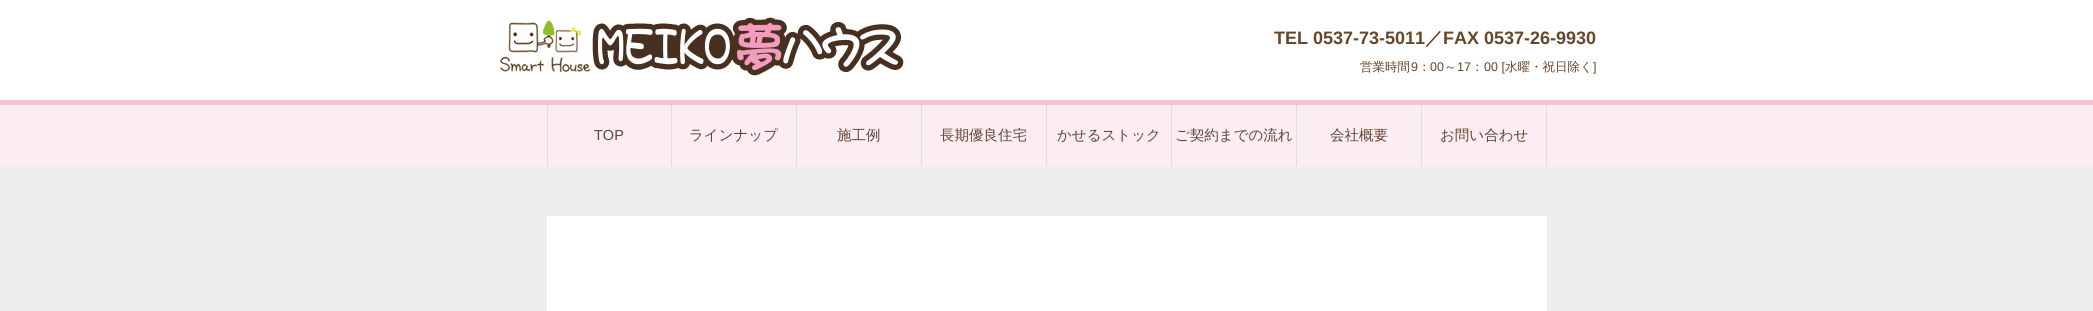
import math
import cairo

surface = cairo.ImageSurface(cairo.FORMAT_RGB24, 2093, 311)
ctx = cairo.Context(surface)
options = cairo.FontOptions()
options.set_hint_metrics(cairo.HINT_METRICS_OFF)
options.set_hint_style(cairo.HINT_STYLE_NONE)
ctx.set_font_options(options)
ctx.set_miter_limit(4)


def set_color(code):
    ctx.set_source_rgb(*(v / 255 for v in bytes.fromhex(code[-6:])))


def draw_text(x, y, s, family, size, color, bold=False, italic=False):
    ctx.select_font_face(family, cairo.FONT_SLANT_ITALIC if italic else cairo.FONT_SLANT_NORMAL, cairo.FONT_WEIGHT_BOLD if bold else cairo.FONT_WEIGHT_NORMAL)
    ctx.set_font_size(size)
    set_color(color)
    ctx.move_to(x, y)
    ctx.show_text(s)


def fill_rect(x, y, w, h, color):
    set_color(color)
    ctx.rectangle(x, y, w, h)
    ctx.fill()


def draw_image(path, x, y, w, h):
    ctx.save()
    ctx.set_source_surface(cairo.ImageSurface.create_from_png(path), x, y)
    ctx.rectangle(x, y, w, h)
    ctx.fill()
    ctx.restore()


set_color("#ffffff")
ctx.paint()
draw_image("assets/img1.png", 500, 17, 404, 59)
draw_text(1274, 44, "TEL 0537-73-5011", "Liberation Sans", 18, "#68462a", bold=True)
draw_text(1425, 44, "／", "WenQuanYi Zen Hei", 18, "#68462a", bold=True)
draw_text(1443, 44, "FAX 0537-26-9930", "Liberation Sans", 18, "#68462a", bold=True)
draw_text(1360, 71, "営業時間", "WenQuanYi Zen Hei Medium", 12.5, "#68462a")
draw_text(1411, 71, "9", "Liberation Sans", 12.5, "#68462a")
draw_text(1418, 71, "：", "WenQuanYi Zen Hei Medium", 12.5, "#68462a")
draw_text(1430, 71, "00", "Liberation Sans", 12.5, "#68462a")
draw_text(1444, 71, "～", "WenQuanYi Zen Hei Medium", 12.5, "#68462a")
draw_text(1457, 71, "17", "Liberation Sans", 12.5, "#68462a")
draw_text(1471, 71, "：", "WenQuanYi Zen Hei Medium", 12.5, "#68462a")
draw_text(1484, 71, "00 [", "Liberation Sans", 12.5, "#68462a")
draw_text(1505, 71, "水曜・祝日除く", "WenQuanYi Zen Hei Medium", 12.5, "#68462a")
draw_text(1593, 71, "]", "Liberation Sans", 12.5, "#68462a")
fill_rect(0, 105, 2093, 61, "#fcedf2")
fill_rect(0, 100, 2093, 5, "#f5c5d5")
fill_rect(671, 105, 1, 61, "#dddddd")
fill_rect(547, 105, 1, 61, "#dddddd")
draw_text(594, 140, "TOP", "Liberation Sans", 14.5, "#61452f")
fill_rect(796, 105, 1, 61, "#dddddd")
draw_text(689, 140, "ラインナップ", "WenQuanYi Zen Hei Medium", 14.5, "#61452f")
fill_rect(921, 105, 1, 61, "#dddddd")
draw_text(837, 140, "施工例", "WenQuanYi Zen Hei Medium", 14.5, "#61452f")
fill_rect(1046, 105, 1, 61, "#dddddd")
draw_text(940, 140, "長期優良住宅", "WenQuanYi Zen Hei Medium", 14.5, "#61452f")
fill_rect(1171, 105, 1, 61, "#dddddd")
draw_text(1057, 140, "かせるストック", "WenQuanYi Zen Hei Medium", 14.5, "#61452f")
fill_rect(1296, 105, 1, 61, "#dddddd")
draw_text(1175, 140, "ご契約までの流れ", "WenQuanYi Zen Hei Medium", 14.5, "#61452f")
fill_rect(1421, 105, 1, 61, "#dddddd")
draw_text(1330, 140, "会社概要", "WenQuanYi Zen Hei Medium", 14.5, "#61452f")
fill_rect(1546, 105, 1, 61, "#dddddd")
draw_text(1440, 140, "お問い合わせ", "WenQuanYi Zen Hei Medium", 14.5, "#61452f")
fill_rect(0, 166, 2093, 145, "#eeeeee")
fill_rect(547, 216, 1000, 95, "#ffffff")
surface.write_to_png("output.png")
